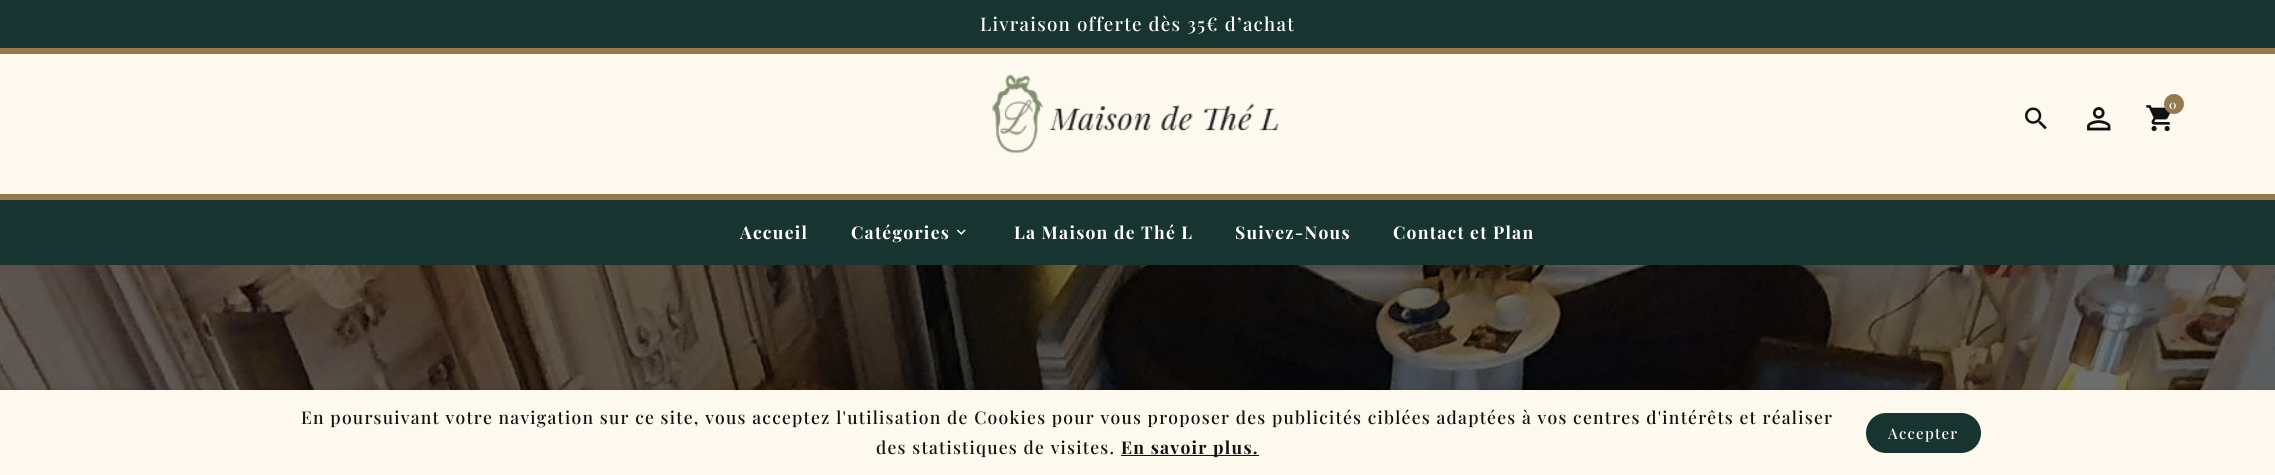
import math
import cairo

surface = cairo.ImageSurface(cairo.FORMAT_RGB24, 2275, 475)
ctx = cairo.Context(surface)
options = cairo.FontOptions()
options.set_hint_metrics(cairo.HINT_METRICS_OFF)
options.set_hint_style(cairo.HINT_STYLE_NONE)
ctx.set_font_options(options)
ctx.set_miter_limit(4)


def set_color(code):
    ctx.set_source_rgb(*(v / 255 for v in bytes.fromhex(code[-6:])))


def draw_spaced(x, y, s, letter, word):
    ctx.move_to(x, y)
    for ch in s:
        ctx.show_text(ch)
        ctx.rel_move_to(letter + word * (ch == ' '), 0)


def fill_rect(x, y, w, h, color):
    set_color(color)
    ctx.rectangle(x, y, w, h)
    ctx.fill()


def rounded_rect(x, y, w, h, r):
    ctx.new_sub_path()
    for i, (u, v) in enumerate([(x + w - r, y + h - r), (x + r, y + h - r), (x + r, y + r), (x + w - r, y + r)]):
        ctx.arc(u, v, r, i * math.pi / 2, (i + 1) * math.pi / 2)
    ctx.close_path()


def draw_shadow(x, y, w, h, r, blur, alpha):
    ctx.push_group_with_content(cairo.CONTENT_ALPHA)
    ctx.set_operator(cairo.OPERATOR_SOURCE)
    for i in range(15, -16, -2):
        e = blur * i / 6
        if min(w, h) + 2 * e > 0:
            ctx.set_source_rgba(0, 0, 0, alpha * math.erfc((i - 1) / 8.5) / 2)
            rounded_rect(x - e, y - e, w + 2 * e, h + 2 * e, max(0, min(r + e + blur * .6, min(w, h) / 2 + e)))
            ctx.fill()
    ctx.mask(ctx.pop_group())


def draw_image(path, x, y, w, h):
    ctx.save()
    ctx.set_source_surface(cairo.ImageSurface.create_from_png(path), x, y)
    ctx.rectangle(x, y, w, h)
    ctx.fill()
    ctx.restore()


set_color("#fdf9ee")
ctx.paint()
fill_rect(0, 0, 2275, 48, "#173430")
fill_rect(0, 48, 2275, 6, "#957a4e")
ctx.select_font_face("Playfair Display Medium")
ctx.set_font_size(18.75)
set_color("#ffffff")
draw_spaced(980, 31, "Livraison offerte dès 35€ d’achat", 1.25, 0)
draw_image("assets/img1.png", 992, 74, 287, 79)
draw_image("assets/img2.png", 2146, 105, 25, 27)
set_color("#957a4e")
ctx.arc(2174, 104, 10, 0, 2 * math.pi)
ctx.fill()
ctx.set_font_size(12)
set_color("#ffffff")
draw_spaced(2169, 109, "0", 1.25, 0)
draw_image("assets/img3.png", 2025, 107, 22, 23)
draw_image("assets/img4.png", 2087, 107, 24, 24)
fill_rect(0, 200, 2275, 65, "#173430")
fill_rect(0, 194, 2275, 6, "#957a4e")
ctx.select_font_face("Playfair Display", cairo.FONT_SLANT_NORMAL, cairo.FONT_WEIGHT_BOLD)
ctx.set_font_size(17.5)
set_color("#ffffff")
draw_spaced(740, 239, "Accueil", 1.25, 0)
draw_spaced(851, 239, "Catégories", 1.25, 0)
draw_image("assets/img5.png", 957, 229, 9, 6)
draw_spaced(1014, 239, "La Maison de Thé L", 1.25, 0)
draw_spaced(1235, 239, "Suivez-Nous", 1.25, 0)
draw_spaced(1393, 239, "Contact et Plan", 1.25, 0)
draw_image("assets/img6.png", 0, 265, 2275, 125)
set_color("#000000")
draw_shadow(0, 391, 2275, 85, 0, 3, 0.15)
fill_rect(0, 390, 2275, 85, "#fdf9ee")
ctx.select_font_face("Playfair Display Medium")
set_color("#111111")
draw_spaced(301, 424, "En poursuivant votre navigation sur ce site, vous acceptez l'utilisation de Cookies pour vous proposer des publicités ciblées adaptées à vos centres d'intérêts et réaliser", 1.25, 0)
draw_spaced(876, 454, "des statistiques de visites.", 1.25, 0)
fill_rect(1121, 455, 138, 1, "#111111")
ctx.select_font_face("Playfair Display", cairo.FONT_SLANT_NORMAL, cairo.FONT_WEIGHT_BOLD)
draw_spaced(1121, 454, "En savoir plus.", 1.25, 0)
set_color("#173430")
rounded_rect(1866, 413, 115, 40, 20)
ctx.fill()
ctx.select_font_face("Playfair Display Medium")
ctx.set_font_size(15)
set_color("#ffffff")
draw_spaced(1888, 439, "Accepter", 1.25, 0)
surface.write_to_png("output.png")
